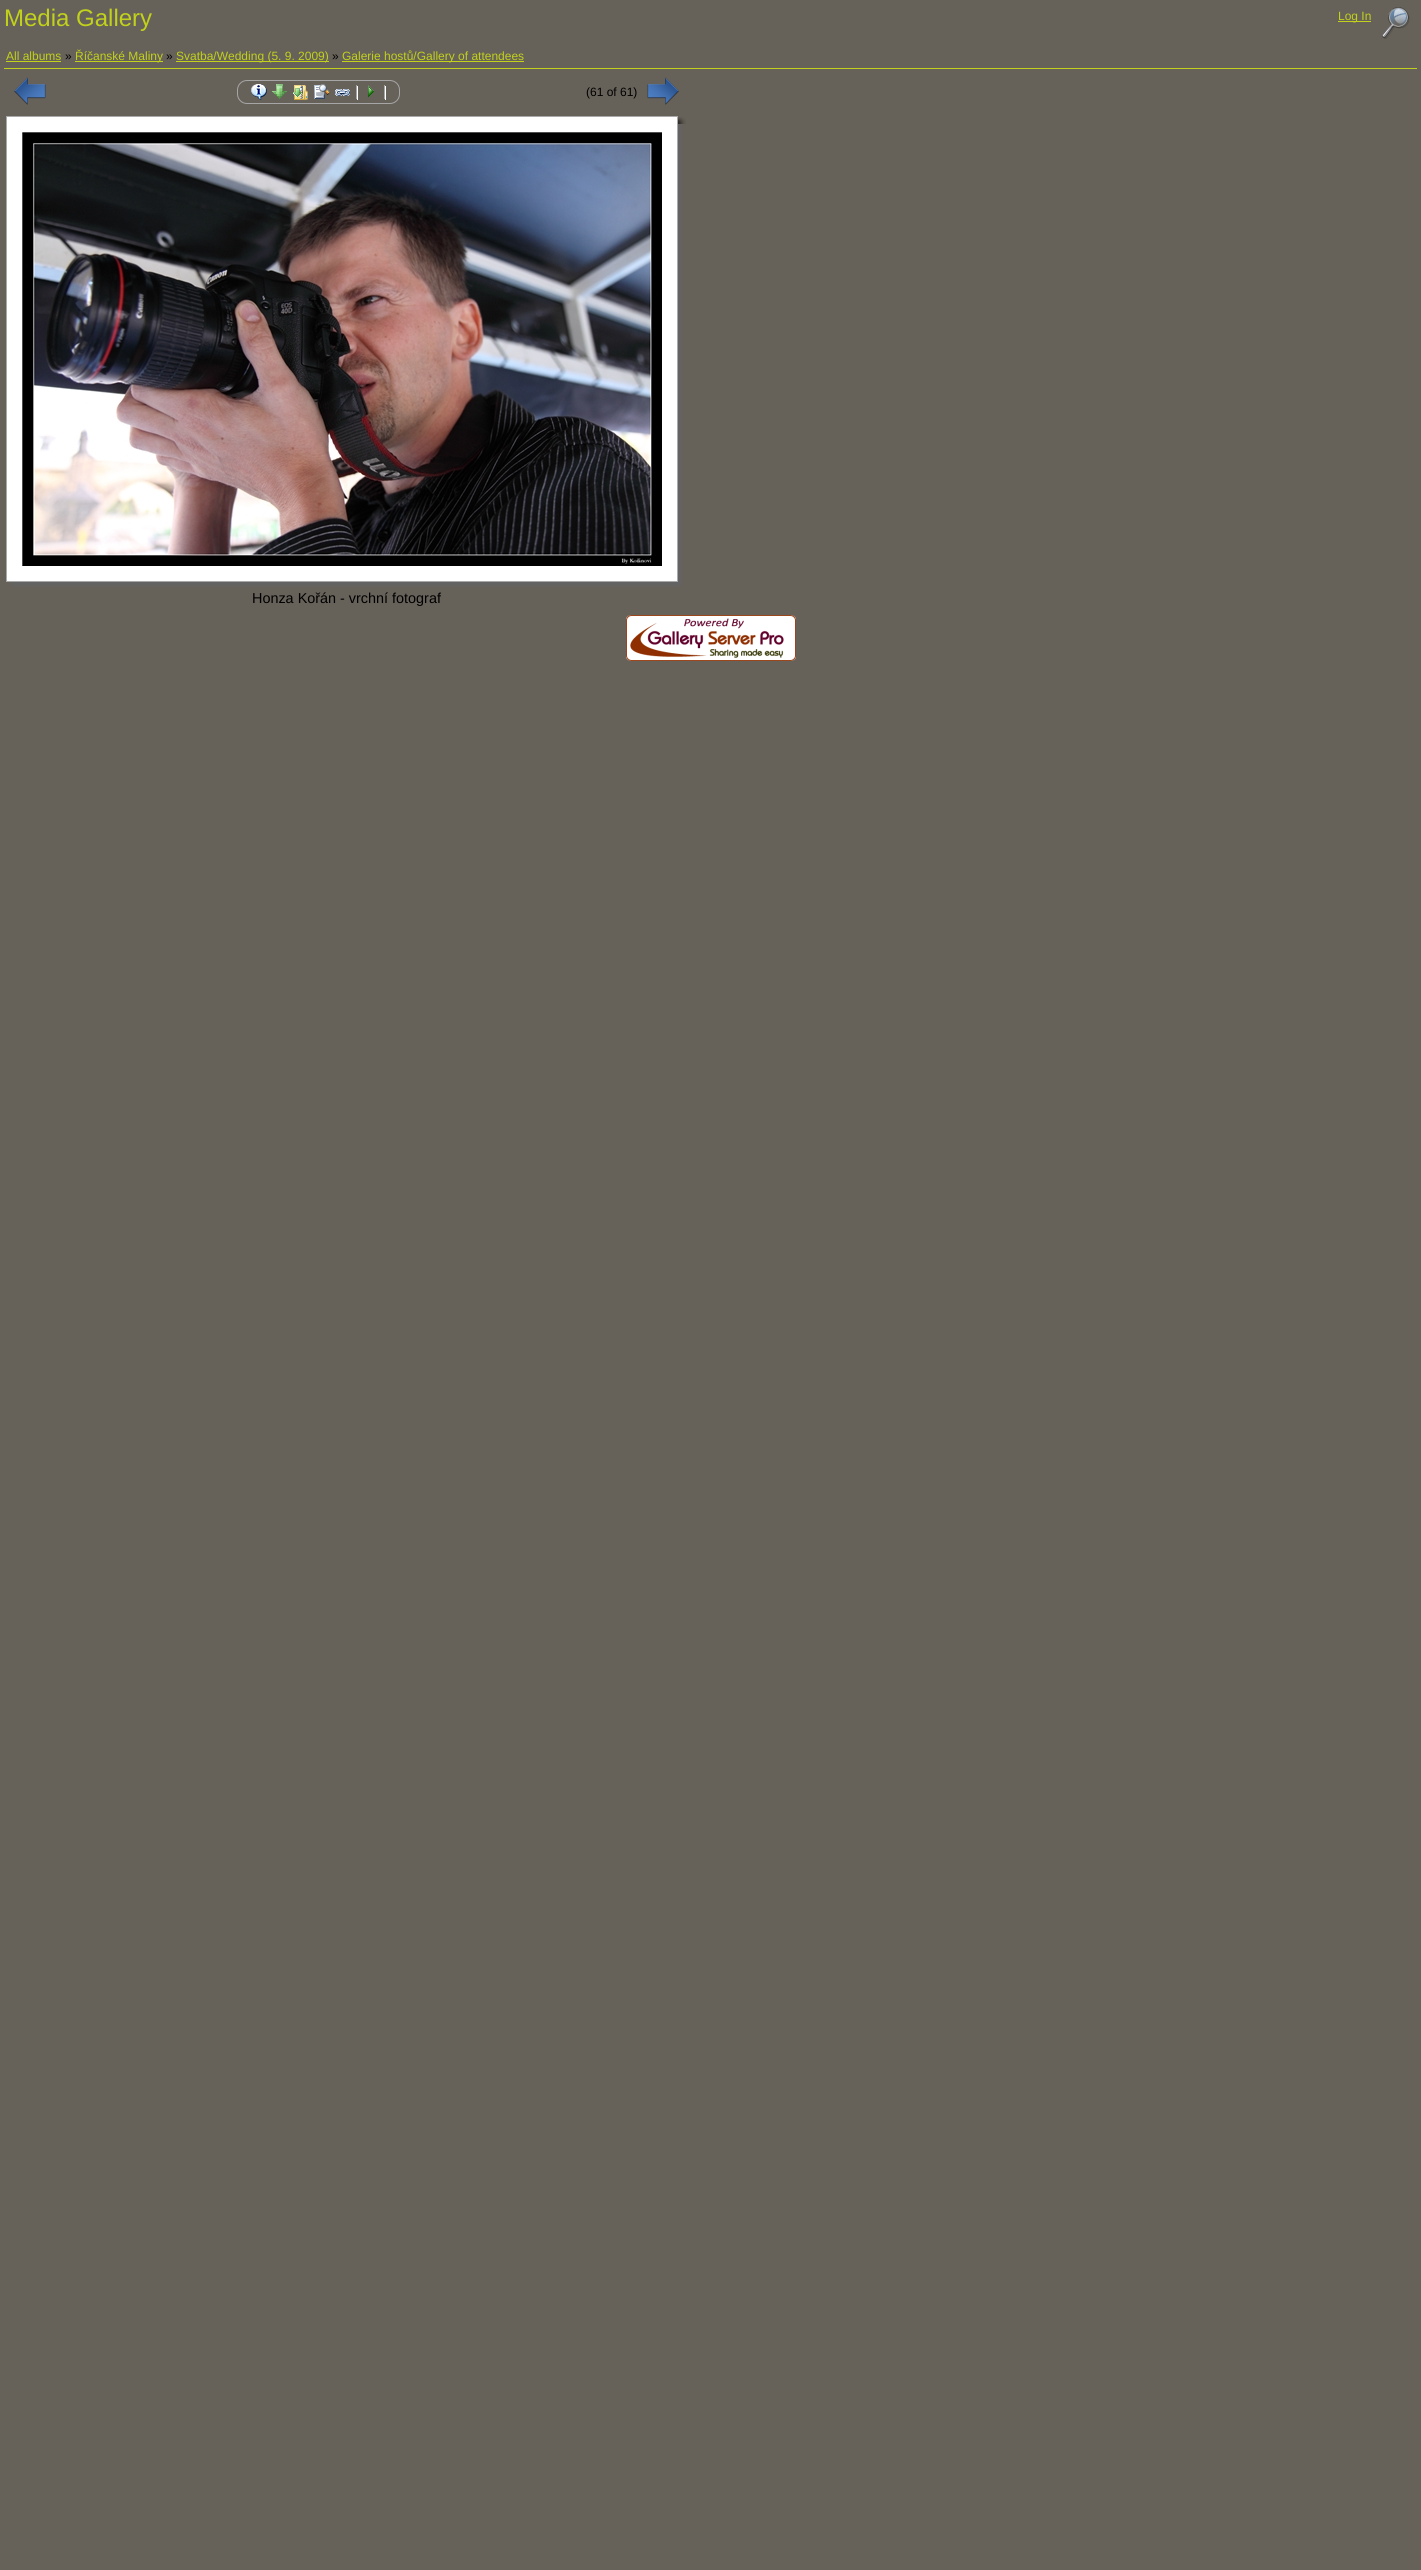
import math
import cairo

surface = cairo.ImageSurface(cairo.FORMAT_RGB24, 1421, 2570)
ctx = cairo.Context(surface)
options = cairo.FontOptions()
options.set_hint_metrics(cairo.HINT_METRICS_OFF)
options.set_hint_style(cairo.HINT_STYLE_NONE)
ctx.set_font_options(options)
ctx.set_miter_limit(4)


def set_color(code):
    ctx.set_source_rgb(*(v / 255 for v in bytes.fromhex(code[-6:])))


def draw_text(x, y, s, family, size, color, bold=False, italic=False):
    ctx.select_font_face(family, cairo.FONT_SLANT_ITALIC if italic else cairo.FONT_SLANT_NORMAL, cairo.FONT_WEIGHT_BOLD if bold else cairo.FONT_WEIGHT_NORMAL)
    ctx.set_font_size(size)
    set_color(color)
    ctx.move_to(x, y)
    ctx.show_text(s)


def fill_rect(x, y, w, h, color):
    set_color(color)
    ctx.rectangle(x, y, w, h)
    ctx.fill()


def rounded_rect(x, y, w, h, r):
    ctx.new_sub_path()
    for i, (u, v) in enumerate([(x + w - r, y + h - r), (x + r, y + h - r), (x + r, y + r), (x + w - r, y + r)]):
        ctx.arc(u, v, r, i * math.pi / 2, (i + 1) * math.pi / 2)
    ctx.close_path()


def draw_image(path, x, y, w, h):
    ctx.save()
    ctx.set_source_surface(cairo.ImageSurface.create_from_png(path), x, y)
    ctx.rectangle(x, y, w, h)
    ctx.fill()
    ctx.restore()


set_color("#666159")
ctx.paint()
draw_text(4, 26, "Media Gallery", "Liberation Sans", 24, "#c1d11c")
fill_rect(1338, 21, 33, 1, "#c1d11c")
draw_text(1338, 20, "Log In", "Liberation Sans", 12, "#c1d11c")
draw_image("assets/img1.png", 1382, 7, 28, 32)
fill_rect(4, 68, 1413, 1, "#c1d11c")
draw_text(6, 60, "All albums", "Liberation Sans", 12, "#c1d11c")
fill_rect(6, 61, 55, 1, "#c1d11c")
draw_text(65, 60, "»", "Liberation Sans", 12, "#000000")
fill_rect(75, 61, 88, 1, "#c1d11c")
draw_text(75, 60, "Říčanské Maliny", "Liberation Sans", 12, "#c1d11c")
draw_text(166, 60, "»", "Liberation Sans", 12, "#000000")
fill_rect(176, 61, 153, 1, "#c1d11c")
draw_text(176, 60, "Svatba/Wedding (5. 9. 2009)", "Liberation Sans", 12, "#c1d11c")
draw_text(332, 60, "»", "Liberation Sans", 12, "#000000")
fill_rect(342, 61, 182, 1, "#c1d11c")
draw_text(342, 60, "Galerie hostů/Gallery of attendees", "Liberation Sans", 12, "#c1d11c")
draw_image("assets/img2.png", 14, 77, 32, 28)
rounded_rect(237.5, 80.5, 162, 23, 9.5)
set_color("#a6a6a6")
ctx.set_line_width(1)
ctx.stroke()
draw_image("assets/img3.png", 251, 84, 16, 16)
draw_image("assets/img4.png", 272, 84, 15, 15)
draw_image("assets/img5.png", 293, 85, 15, 15)
draw_image("assets/img6.png", 314, 84, 16, 15)
draw_image("assets/img7.png", 335, 89, 15, 7)
draw_image("assets/img8.png", 356, 85, 2, 15)
draw_image("assets/img9.png", 368, 85, 7, 13)
draw_image("assets/img8.png", 384, 85, 2, 15)
draw_text(586, 96, "(61 of 61)", "Liberation Sans", 12, "#000000")
draw_image("assets/img10.png", 647, 77, 32, 28)
draw_image("assets/img11.png", 678, 117, 8, 7)
draw_image("assets/img12.png", 11, 582, 3, 5)
draw_image("assets/img13.png", 14, 124, 668, 463)
ctx.rectangle(6.5, 116.5, 671, 465)
set_color("#a9a9a9")
ctx.stroke()
ctx.rectangle(14.5, 124.5, 655, 449)
set_color("#ffffff")
ctx.set_line_width(15)
ctx.stroke()
draw_image("assets/img14.png", 22, 132, 640, 434)
draw_text(252, 603, "Honza Kořán - vrchní fotograf", "Liberation Sans", 14.4, "#000000")
draw_image("assets/img15.png", 626, 615, 170, 46)
surface.write_to_png("output.png")
